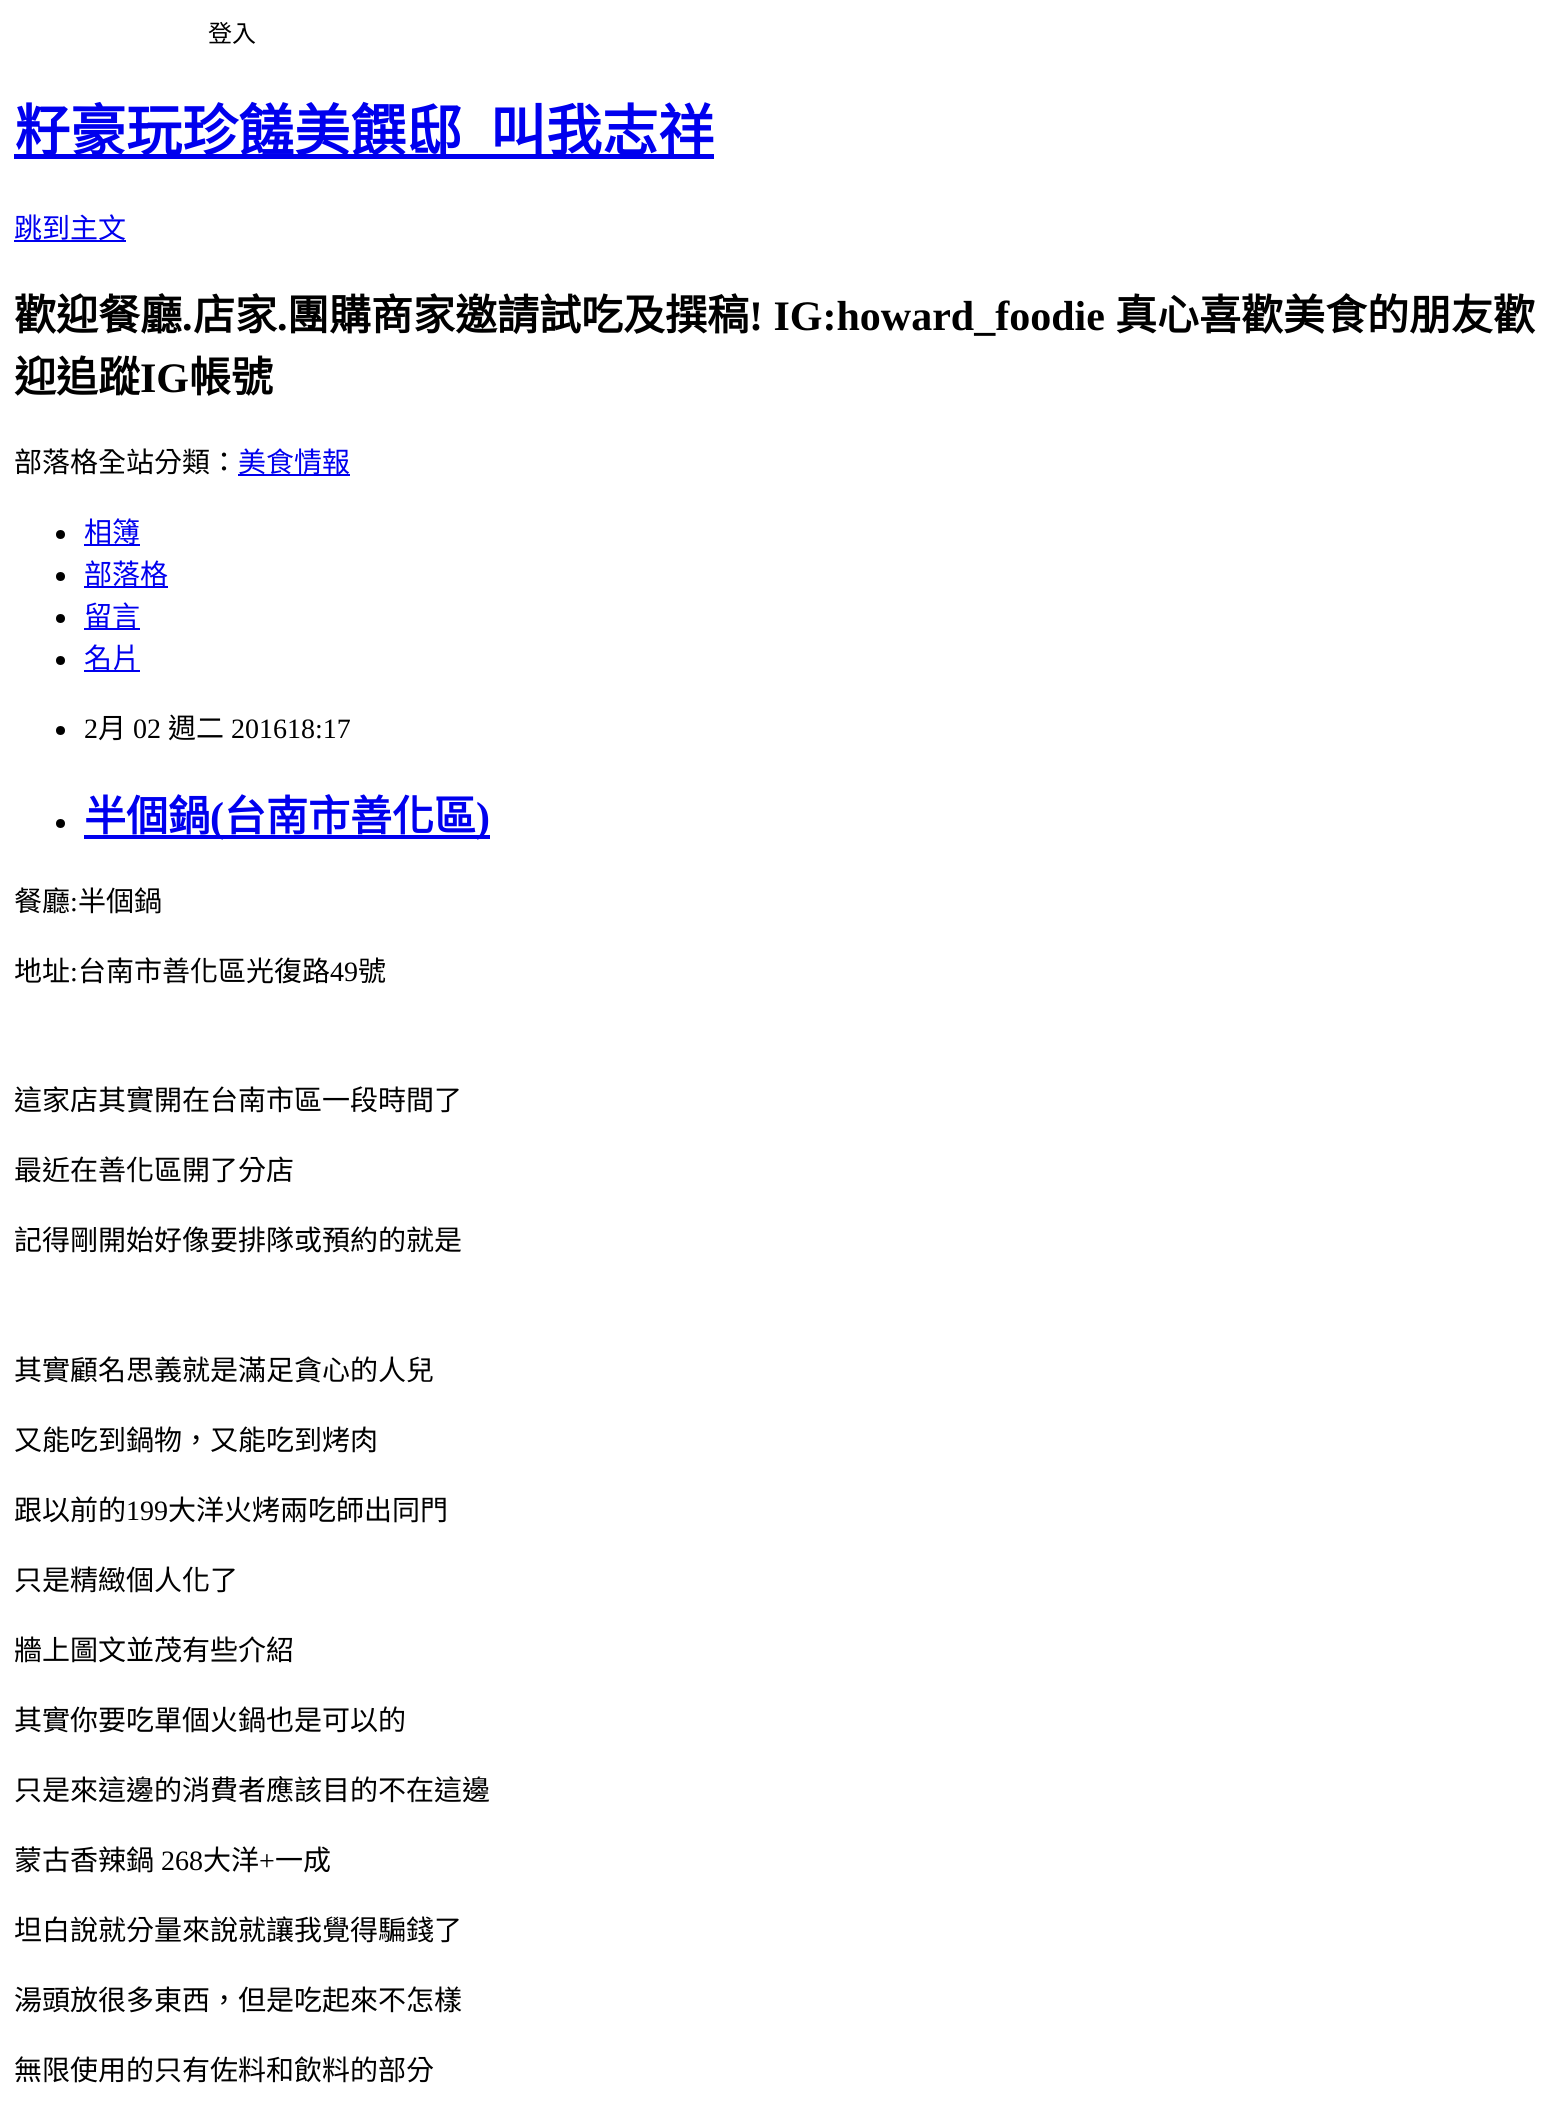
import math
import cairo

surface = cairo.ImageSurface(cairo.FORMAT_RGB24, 1559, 2119)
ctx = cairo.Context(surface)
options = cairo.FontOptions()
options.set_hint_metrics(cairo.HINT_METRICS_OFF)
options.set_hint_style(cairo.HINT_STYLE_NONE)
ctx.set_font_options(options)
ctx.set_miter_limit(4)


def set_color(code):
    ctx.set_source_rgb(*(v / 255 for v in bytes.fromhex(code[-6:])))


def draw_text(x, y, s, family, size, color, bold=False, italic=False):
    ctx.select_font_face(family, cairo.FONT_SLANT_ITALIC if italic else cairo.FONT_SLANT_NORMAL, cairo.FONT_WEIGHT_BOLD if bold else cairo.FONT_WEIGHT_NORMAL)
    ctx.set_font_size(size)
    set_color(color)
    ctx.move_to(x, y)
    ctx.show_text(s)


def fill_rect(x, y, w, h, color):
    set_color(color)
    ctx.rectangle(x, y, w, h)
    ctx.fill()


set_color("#ffffff")
ctx.paint()
draw_text(208, 42, "登入", "Noto Sans CJK TC", 24, "#000000")
fill_rect(14, 154, 700, 5, "#0000ee")
draw_text(14, 151, "籽豪玩珍饈美饌邸", "Noto Sans CJK TC", 56, "#0000ee", bold=True)
draw_text(490, 151, "叫我志祥", "Noto Sans CJK TC", 56, "#0000ee", bold=True)
fill_rect(14, 240, 112, 2, "#0000ee")
draw_text(14, 238, "跳到主文", "Noto Sans CJK TC", 28, "#0000ee")
draw_text(14, 330, "歡迎餐廳", "Noto Sans CJK TC", 42, "#000000", bold=True)
draw_text(182, 330, ".", "Liberation Serif", 42, "#000000", bold=True)
draw_text(193, 330, "店家", "Noto Sans CJK TC", 42, "#000000", bold=True)
draw_text(277, 330, ".", "Liberation Serif", 42, "#000000", bold=True)
draw_text(287, 330, "團購商家邀請試吃及撰稿", "Noto Sans CJK TC", 42, "#000000", bold=True)
draw_text(749, 330, "! IG:howard_foodie", "Liberation Serif", 42, "#000000", bold=True)
draw_text(1115, 330, "真心喜歡美食的朋友歡", "Noto Sans CJK TC", 42, "#000000", bold=True)
draw_text(14, 392, "迎追蹤", "Noto Sans CJK TC", 42, "#000000", bold=True)
draw_text(140, 392, "IG", "Liberation Serif", 42, "#000000", bold=True)
draw_text(189, 392, "帳號", "Noto Sans CJK TC", 42, "#000000", bold=True)
draw_text(14, 472, "部落格全站分類：", "Noto Sans CJK TC", 28, "#000000")
fill_rect(238, 474, 112, 2, "#0000ee")
draw_text(238, 472, "美食情報", "Noto Sans CJK TC", 28, "#0000ee")
set_color("#000000")
ctx.new_path()
ctx.arc(60.5, 534.5, 4.5, 0, 2 * math.pi)
ctx.fill()
fill_rect(84, 544, 56, 2, "#0000ee")
draw_text(84, 542, "相簿", "Noto Sans CJK TC", 28, "#0000ee")
set_color("#000000")
ctx.new_path()
ctx.arc(60.5, 576.5, 4.5, 0, 2 * math.pi)
ctx.fill()
fill_rect(84, 586, 84, 2, "#0000ee")
draw_text(84, 584, "部落格", "Noto Sans CJK TC", 28, "#0000ee")
set_color("#000000")
ctx.new_path()
ctx.arc(60.5, 618.5, 4.5, 0, 2 * math.pi)
ctx.fill()
fill_rect(84, 628, 56, 2, "#0000ee")
draw_text(84, 626, "留言", "Noto Sans CJK TC", 28, "#0000ee")
set_color("#000000")
ctx.new_path()
ctx.arc(60.5, 660.5, 4.5, 0, 2 * math.pi)
ctx.fill()
fill_rect(84, 670, 56, 2, "#0000ee")
draw_text(84, 668, "名片", "Noto Sans CJK TC", 28, "#0000ee")
set_color("#000000")
ctx.new_path()
ctx.arc(60.5, 730.5, 4.5, 0, 2 * math.pi)
ctx.fill()
draw_text(84, 738, "2", "Liberation Serif", 28, "#000000")
draw_text(98, 738, "月", "Noto Sans CJK TC", 28, "#000000")
draw_text(133, 738, "02", "Liberation Serif", 28, "#000000")
draw_text(168, 738, "週二", "Noto Sans CJK TC", 28, "#000000")
draw_text(231, 738, "201618:17", "Liberation Serif", 28, "#000000")
ctx.new_path()
ctx.arc(60.5, 823.5, 4.5, 0, 2 * math.pi)
ctx.fill()
draw_text(84, 831, "半個鍋", "Noto Sans CJK TC", 42, "#0000ee", bold=True)
fill_rect(84, 835, 406, 4, "#0000ee")
draw_text(210, 831, "(", "Liberation Serif", 42, "#0000ee", bold=True)
draw_text(224, 831, "台南市善化區", "Noto Sans CJK TC", 42, "#0000ee", bold=True)
draw_text(476, 831, ")", "Liberation Serif", 42, "#0000ee", bold=True)
draw_text(14, 911, "餐廳", "Noto Sans CJK TC", 28, "#000000")
draw_text(70, 911, ":", "Liberation Serif", 28, "#000000")
draw_text(78, 911, "半個鍋", "Noto Sans CJK TC", 28, "#000000")
draw_text(14, 981, "地址", "Noto Sans CJK TC", 28, "#000000")
draw_text(70, 981, ":", "Liberation Serif", 28, "#000000")
draw_text(78, 981, "台南市善化區光復路", "Noto Sans CJK TC", 28, "#000000")
draw_text(330, 981, "49", "Liberation Serif", 28, "#000000")
draw_text(358, 981, "號", "Noto Sans CJK TC", 28, "#000000")
draw_text(14, 1110, "這家店其實開在台南市區一段時間了", "Noto Sans CJK TC", 28, "#000000")
draw_text(14, 1180, "最近在善化區開了分店", "Noto Sans CJK TC", 28, "#000000")
draw_text(14, 1250, "記得剛開始好像要排隊或預約的就是", "Noto Sans CJK TC", 28, "#000000")
draw_text(14, 1380, "其實顧名思義就是滿足貪心的人兒", "Noto Sans CJK TC", 28, "#000000")
draw_text(14, 1450, "又能吃到鍋物，又能吃到烤肉", "Noto Sans CJK TC", 28, "#000000")
draw_text(14, 1520, "跟以前的", "Noto Sans CJK TC", 28, "#000000")
draw_text(126, 1520, "199", "Liberation Serif", 28, "#000000")
draw_text(168, 1520, "大洋火烤兩吃師出同門", "Noto Sans CJK TC", 28, "#000000")
draw_text(14, 1590, "只是精緻個人化了", "Noto Sans CJK TC", 28, "#000000")
draw_text(14, 1660, "牆上圖文並茂有些介紹", "Noto Sans CJK TC", 28, "#000000")
draw_text(14, 1730, "其實你要吃單個火鍋也是可以的", "Noto Sans CJK TC", 28, "#000000")
draw_text(14, 1800, "只是來這邊的消費者應該目的不在這邊", "Noto Sans CJK TC", 28, "#000000")
draw_text(14, 1870, "蒙古香辣鍋", "Noto Sans CJK TC", 28, "#000000")
draw_text(161, 1870, "268", "Liberation Serif", 28, "#000000")
draw_text(203, 1870, "大洋", "Noto Sans CJK TC", 28, "#000000")
draw_text(259, 1870, "+", "Liberation Serif", 28, "#000000")
draw_text(275, 1870, "一成", "Noto Sans CJK TC", 28, "#000000")
draw_text(14, 1940, "坦白說就分量來說就讓我覺得騙錢了", "Noto Sans CJK TC", 28, "#000000")
draw_text(14, 2010, "湯頭放很多東西，但是吃起來不怎樣", "Noto Sans CJK TC", 28, "#000000")
draw_text(14, 2080, "無限使用的只有佐料和飲料的部分", "Noto Sans CJK TC", 28, "#000000")
surface.write_to_png("output.png")
